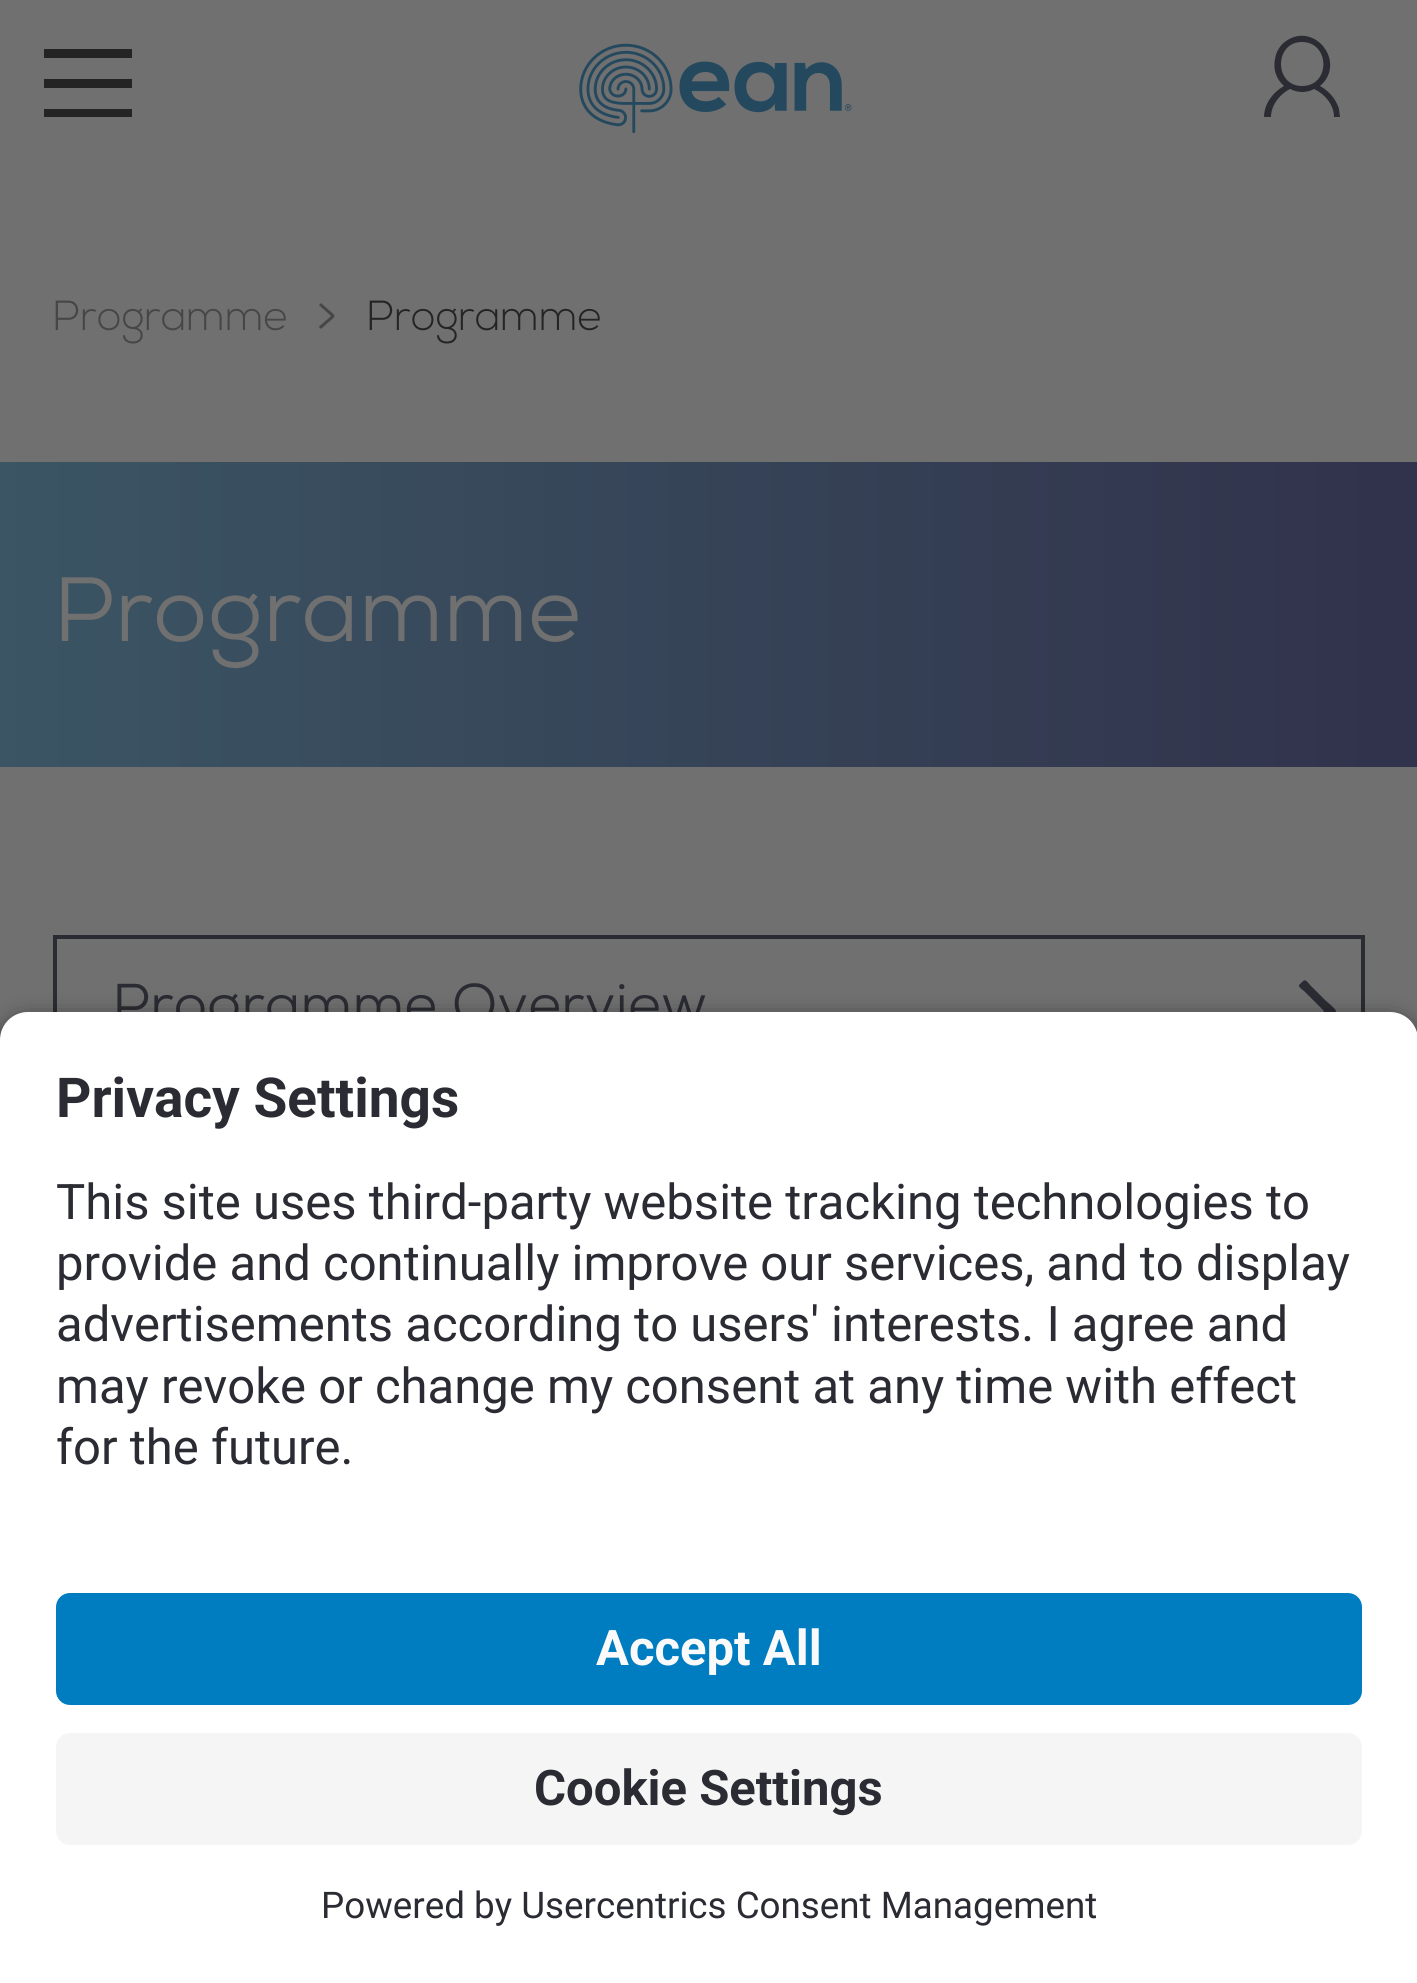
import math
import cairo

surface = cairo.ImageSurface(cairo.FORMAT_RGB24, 1417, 1983)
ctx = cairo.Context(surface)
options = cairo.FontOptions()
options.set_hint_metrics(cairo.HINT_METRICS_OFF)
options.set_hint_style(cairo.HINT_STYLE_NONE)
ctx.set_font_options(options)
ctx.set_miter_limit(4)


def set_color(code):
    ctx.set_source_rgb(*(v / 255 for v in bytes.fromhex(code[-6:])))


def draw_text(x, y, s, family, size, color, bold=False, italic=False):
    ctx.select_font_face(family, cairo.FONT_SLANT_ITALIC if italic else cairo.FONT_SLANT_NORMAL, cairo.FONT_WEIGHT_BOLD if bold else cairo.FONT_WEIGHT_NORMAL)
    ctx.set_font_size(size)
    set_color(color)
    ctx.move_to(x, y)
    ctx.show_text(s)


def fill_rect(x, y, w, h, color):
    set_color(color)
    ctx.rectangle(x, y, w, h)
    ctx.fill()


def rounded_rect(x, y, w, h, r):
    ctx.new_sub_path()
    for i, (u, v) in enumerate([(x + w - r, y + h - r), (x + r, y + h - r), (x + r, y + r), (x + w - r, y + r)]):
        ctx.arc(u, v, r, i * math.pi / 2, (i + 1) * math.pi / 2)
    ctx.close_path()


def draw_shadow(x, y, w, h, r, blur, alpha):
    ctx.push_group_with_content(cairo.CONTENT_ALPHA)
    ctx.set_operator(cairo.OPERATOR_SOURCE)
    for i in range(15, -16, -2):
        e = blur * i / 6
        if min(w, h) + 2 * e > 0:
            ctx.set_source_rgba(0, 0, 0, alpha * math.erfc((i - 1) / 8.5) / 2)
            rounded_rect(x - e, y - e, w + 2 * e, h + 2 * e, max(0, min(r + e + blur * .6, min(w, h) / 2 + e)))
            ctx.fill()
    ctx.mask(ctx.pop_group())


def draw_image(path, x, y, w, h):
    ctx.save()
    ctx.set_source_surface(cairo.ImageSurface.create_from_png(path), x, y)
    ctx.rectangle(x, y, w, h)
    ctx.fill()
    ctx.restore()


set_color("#707070")
ctx.paint()
set_color("#242424")
ctx.new_path()
ctx.move_to(44, 79)
ctx.line_to(132, 79)
ctx.line_to(132, 88)
ctx.line_to(44, 88)
ctx.close_path()
ctx.move_to(44, 109)
ctx.line_to(132, 109)
ctx.line_to(132, 117)
ctx.line_to(44, 117)
ctx.close_path()
ctx.move_to(44, 49)
ctx.line_to(132, 49)
ctx.line_to(132, 58)
ctx.line_to(44, 58)
ctx.close_path()
ctx.fill()
draw_image("assets/img1.png", 579, 43, 273, 91)
set_color("#2b2c33")
ctx.new_path()
ctx.move_to(1340, 117)
ctx.line_to(1334, 117)
ctx.curve_to(1334, 105, 1325, 94, 1314, 89)
ctx.curve_to(1307, 93, 1298, 93, 1290, 89)
ctx.curve_to(1280, 94, 1271, 105, 1271, 117)
ctx.line_to(1264, 117)
ctx.curve_to(1264, 104, 1273, 92, 1284, 86)
ctx.curve_to(1276, 79, 1273, 69, 1275, 59)
ctx.curve_to(1276, 52, 1280, 45, 1286, 41)
ctx.curve_to(1315, 21, 1347, 63, 1320, 86)
ctx.curve_to(1329, 91, 1336, 99, 1339, 109)
ctx.close_path()
ctx.move_to(1302, 42)
ctx.curve_to(1274, 42, 1274, 86, 1302, 86)
ctx.curve_to(1331, 86, 1330, 42, 1302, 42)
ctx.close_path()
ctx.fill()
draw_text(53, 330, "Programme", "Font", 42, "#464649")
draw_text(316, 336, ">", "Font", 63, "#464649")
draw_text(367, 330, "Programme", "Font", 42, "#242424")
gradient = cairo.LinearGradient(0, 614, 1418, 614)
gradient.add_color_stop_rgba(0, 0.231, 0.333, 0.392, 1)
gradient.add_color_stop_rgba(1, 0.192, 0.196, 0.294, 1)
ctx.set_source(gradient)
ctx.rectangle(0, 462, 1417, 305)
ctx.fill()
draw_text(53, 641, "Programme", "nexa", 91, "#707070")
ctx.rectangle(55, 937, 1308, 139)
set_color("#2b2c33")
ctx.set_line_width(4)
ctx.stroke()
draw_text(112, 1023, "Programme Overview", "nexa", 56, "#2b2c33")
ctx.new_path()
ctx.move_to(1336, 1011)
ctx.curve_to(1336, 1014, 1327, 1021, 1325, 1022)
ctx.line_to(1311, 1037)
ctx.curve_to(1305, 1043, 1305, 1045, 1300, 1039)
ctx.curve_to(1298, 1036, 1303, 1032, 1304, 1032)
ctx.line_to(1324, 1011)
ctx.line_to(1304, 991)
ctx.curve_to(1304, 991, 1298, 987, 1299, 985)
ctx.line_to(1302, 982)
ctx.curve_to(1306, 978, 1307, 982, 1311, 986)
ctx.line_to(1325, 1000)
ctx.curve_to(1327, 1002, 1336, 1009, 1336, 1011)
ctx.close_path()
ctx.fill()
set_color("#000000")
draw_shadow(0, 1022, 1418, 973, 28, 12, 0.8)
set_color("#ffffff")
ctx.new_path()
ctx.move_to(28, 1012)
ctx.line_to(1390, 1012)
ctx.curve_to(1405.5, 1012, 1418, 1024.5, 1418, 1040)
ctx.line_to(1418, 1551)
ctx.line_to(0, 1551)
ctx.line_to(0, 1040)
ctx.curve_to(0, 1024.5, 12.5, 1012, 28, 1012)
ctx.close_path()
ctx.fill()
draw_text(56, 1117, "Privacy Settings", "Roboto", 55, "#2b2c33", bold=True)
draw_text(56, 1219, "This site uses third-party website tracking technologies to", "Roboto", 49, "#2b2c33")
draw_text(56, 1280, "provide and continually improve our services, and to display", "Roboto", 49, "#2b2c33")
draw_text(56, 1341, "advertisements according to users' interests. I agree and", "Roboto", 49, "#2b2c33")
draw_text(56, 1403, "may revoke or change my consent at any time with effect", "Roboto", 49, "#2b2c33")
draw_text(56, 1464, "for the future.", "Roboto", 49, "#2b2c33")
fill_rect(0, 1551, 1417, 432, "#ffffff")
set_color("#007cc1")
rounded_rect(56, 1593, 1306, 112, 14)
ctx.fill()
draw_text(596, 1665, "Accept All", "Roboto", 49, "#fafafa", bold=True)
set_color("#f5f5f5")
rounded_rect(56, 1733, 1306, 112, 14)
ctx.fill()
draw_text(534, 1805, "Cookie Settings", "Roboto", 49, "#2b2c33", bold=True)
draw_text(321, 1918, "Powered by Usercentrics Consent Management", "Roboto", 36.75, "#2b2c33")
surface.write_to_png("output.png")
